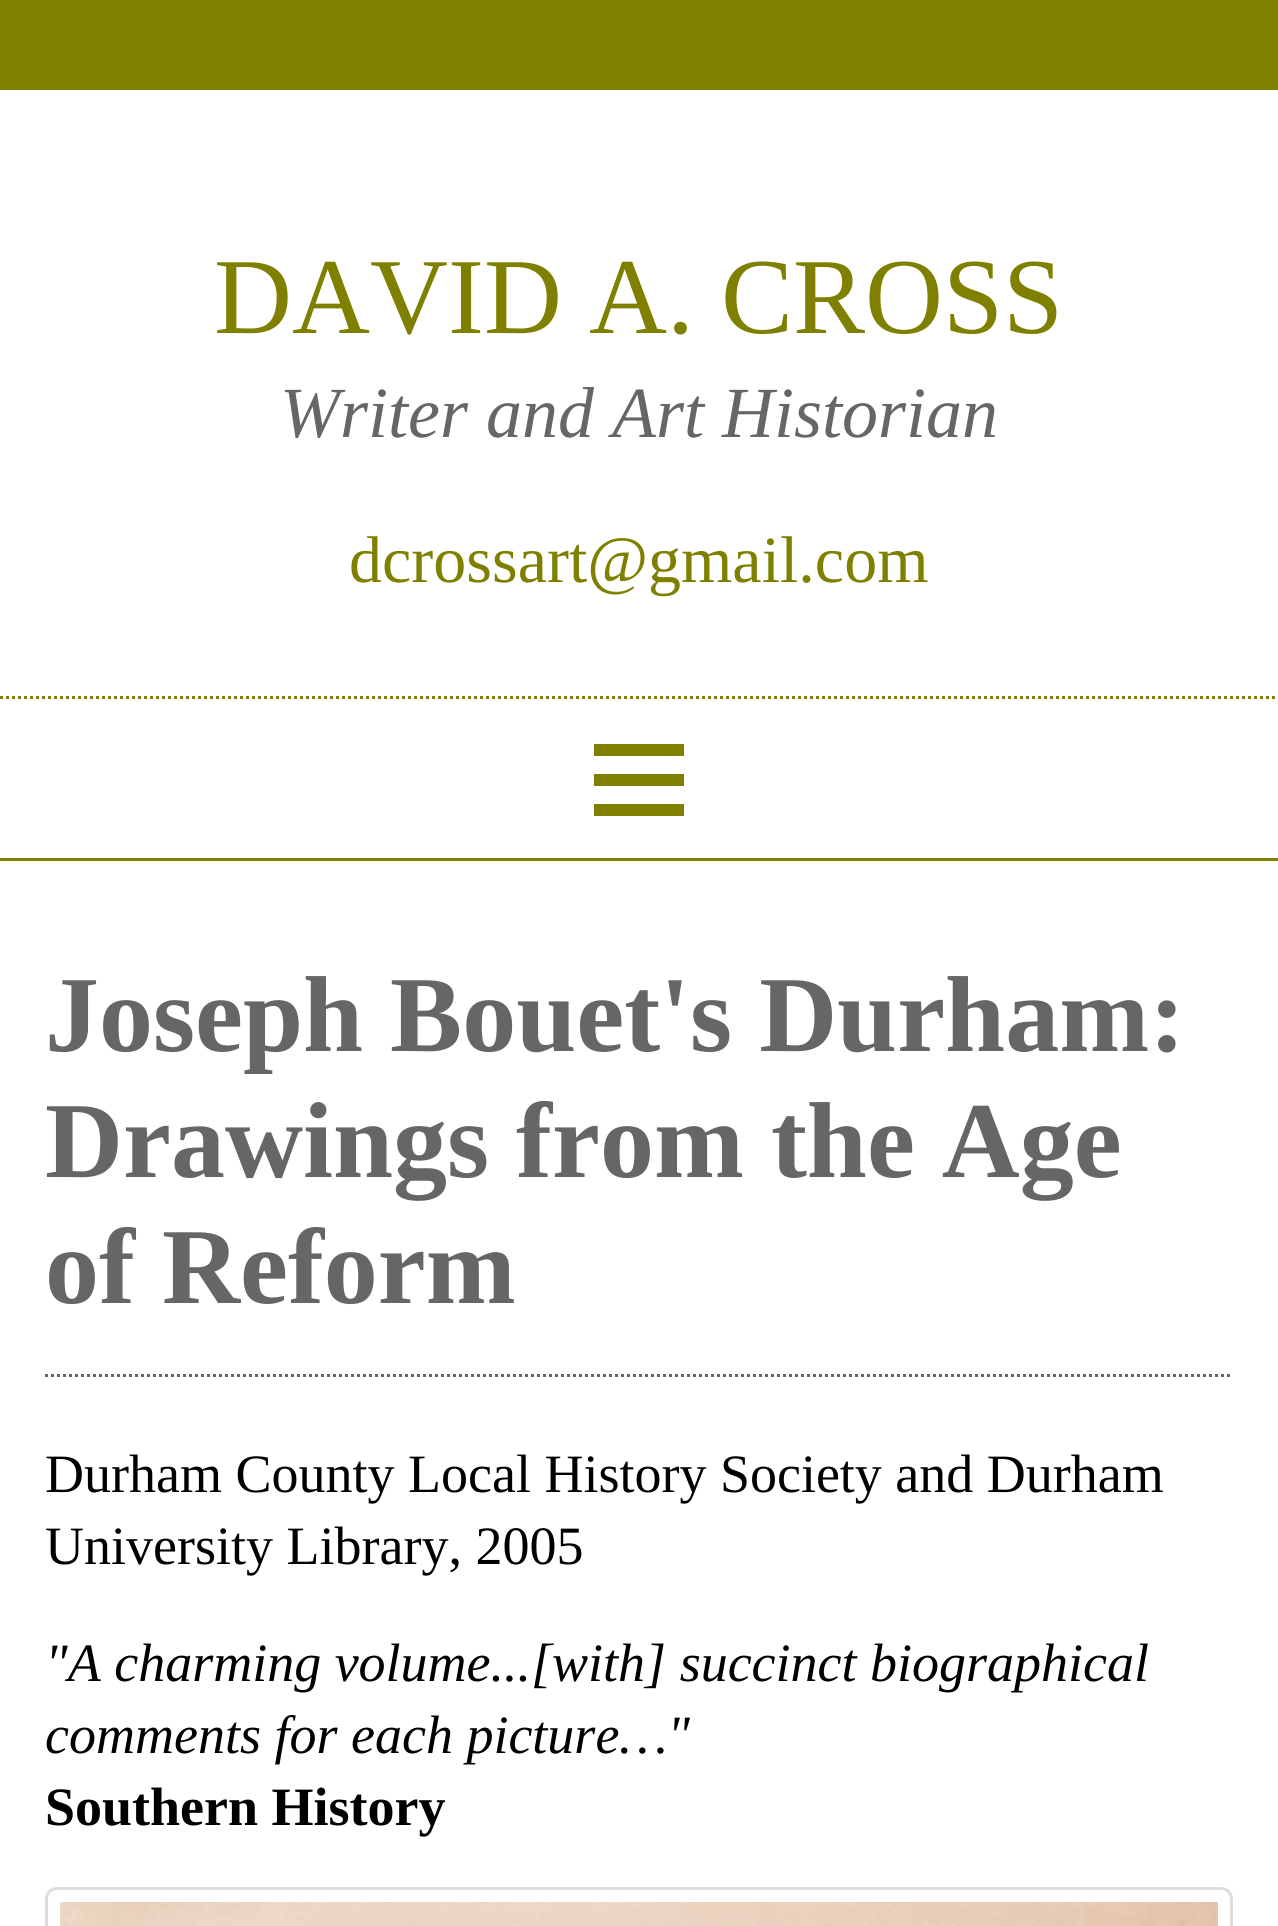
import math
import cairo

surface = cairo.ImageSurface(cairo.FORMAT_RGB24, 1278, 1926)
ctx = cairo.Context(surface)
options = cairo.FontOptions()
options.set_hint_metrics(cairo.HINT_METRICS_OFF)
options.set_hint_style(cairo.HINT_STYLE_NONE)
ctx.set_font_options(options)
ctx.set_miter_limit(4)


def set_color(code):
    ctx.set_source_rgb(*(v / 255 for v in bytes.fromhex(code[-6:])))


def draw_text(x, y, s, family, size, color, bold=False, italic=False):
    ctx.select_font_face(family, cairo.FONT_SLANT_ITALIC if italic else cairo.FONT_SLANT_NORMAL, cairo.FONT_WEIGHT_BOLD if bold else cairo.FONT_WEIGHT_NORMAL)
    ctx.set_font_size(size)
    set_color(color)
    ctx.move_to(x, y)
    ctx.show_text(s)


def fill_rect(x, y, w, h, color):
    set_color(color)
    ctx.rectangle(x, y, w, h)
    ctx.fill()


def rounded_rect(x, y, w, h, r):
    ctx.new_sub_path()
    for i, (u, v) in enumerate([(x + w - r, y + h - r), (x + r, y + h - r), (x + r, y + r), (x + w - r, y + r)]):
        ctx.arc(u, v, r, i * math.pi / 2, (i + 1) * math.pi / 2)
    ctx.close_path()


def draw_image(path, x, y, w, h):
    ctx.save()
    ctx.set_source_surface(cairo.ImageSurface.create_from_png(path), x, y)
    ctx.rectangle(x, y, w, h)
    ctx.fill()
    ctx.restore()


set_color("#ffffff")
ctx.paint()
fill_rect(0, 0, 1278, 90, "#808000")
draw_text(214, 333, "DAVID A. CROSS", "Tinos", 108, "#808000")
draw_text(280, 437, "Writer and Art Historian", "Tinos", 72, "#666666", italic=True)
draw_text(349, 582, "dcrossart@gmail.com", "Tinos", 66, "#808000")
ctx.new_path()
ctx.move_to(0, 697.5)
ctx.line_to(1278, 697.5)
ctx.set_line_width(3)
ctx.set_dash([3, 3])
ctx.stroke()
fill_rect(0, 858, 1278, 3, "#808000")
fill_rect(594, 774, 90, 12, "#808000")
fill_rect(594, 744, 90, 12, "#808000")
fill_rect(594, 804, 90, 12, "#808000")
ctx.new_path()
ctx.move_to(45, 1375.5)
ctx.line_to(1233, 1375.5)
set_color("#666666")
ctx.stroke()
draw_text(45, 1051, "Joseph Bouet's Durham:", "Tinos", 108, "#666666", bold=True)
draw_text(45, 1177, "Drawings from the Age", "Tinos", 108, "#666666", bold=True)
draw_text(45, 1303, "of Reform", "Tinos", 108, "#666666", bold=True)
draw_text(45, 1492, "Durham County Local History Society and Durham", "Tinos", 54, "#000000")
draw_text(45, 1564, "University Library, 2005", "Tinos", 54, "#000000")
draw_text(45, 1681, "\"A charming volume...[with] succinct biographical", "Tinos", 54, "#000000", italic=True)
draw_text(45, 1753, "comments for each picture…\"", "Tinos", 54, "#000000", italic=True)
draw_text(45, 1825, "Southern History", "Tinos", 54, "#000000", bold=True)
rounded_rect(46.5, 1888.5, 1185, 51, 10.5)
set_color("#dddddd")
ctx.set_dash([])
ctx.stroke()
draw_image("assets/img1.png", 60, 1902, 1158, 24)
surface.write_to_png("output.png")
